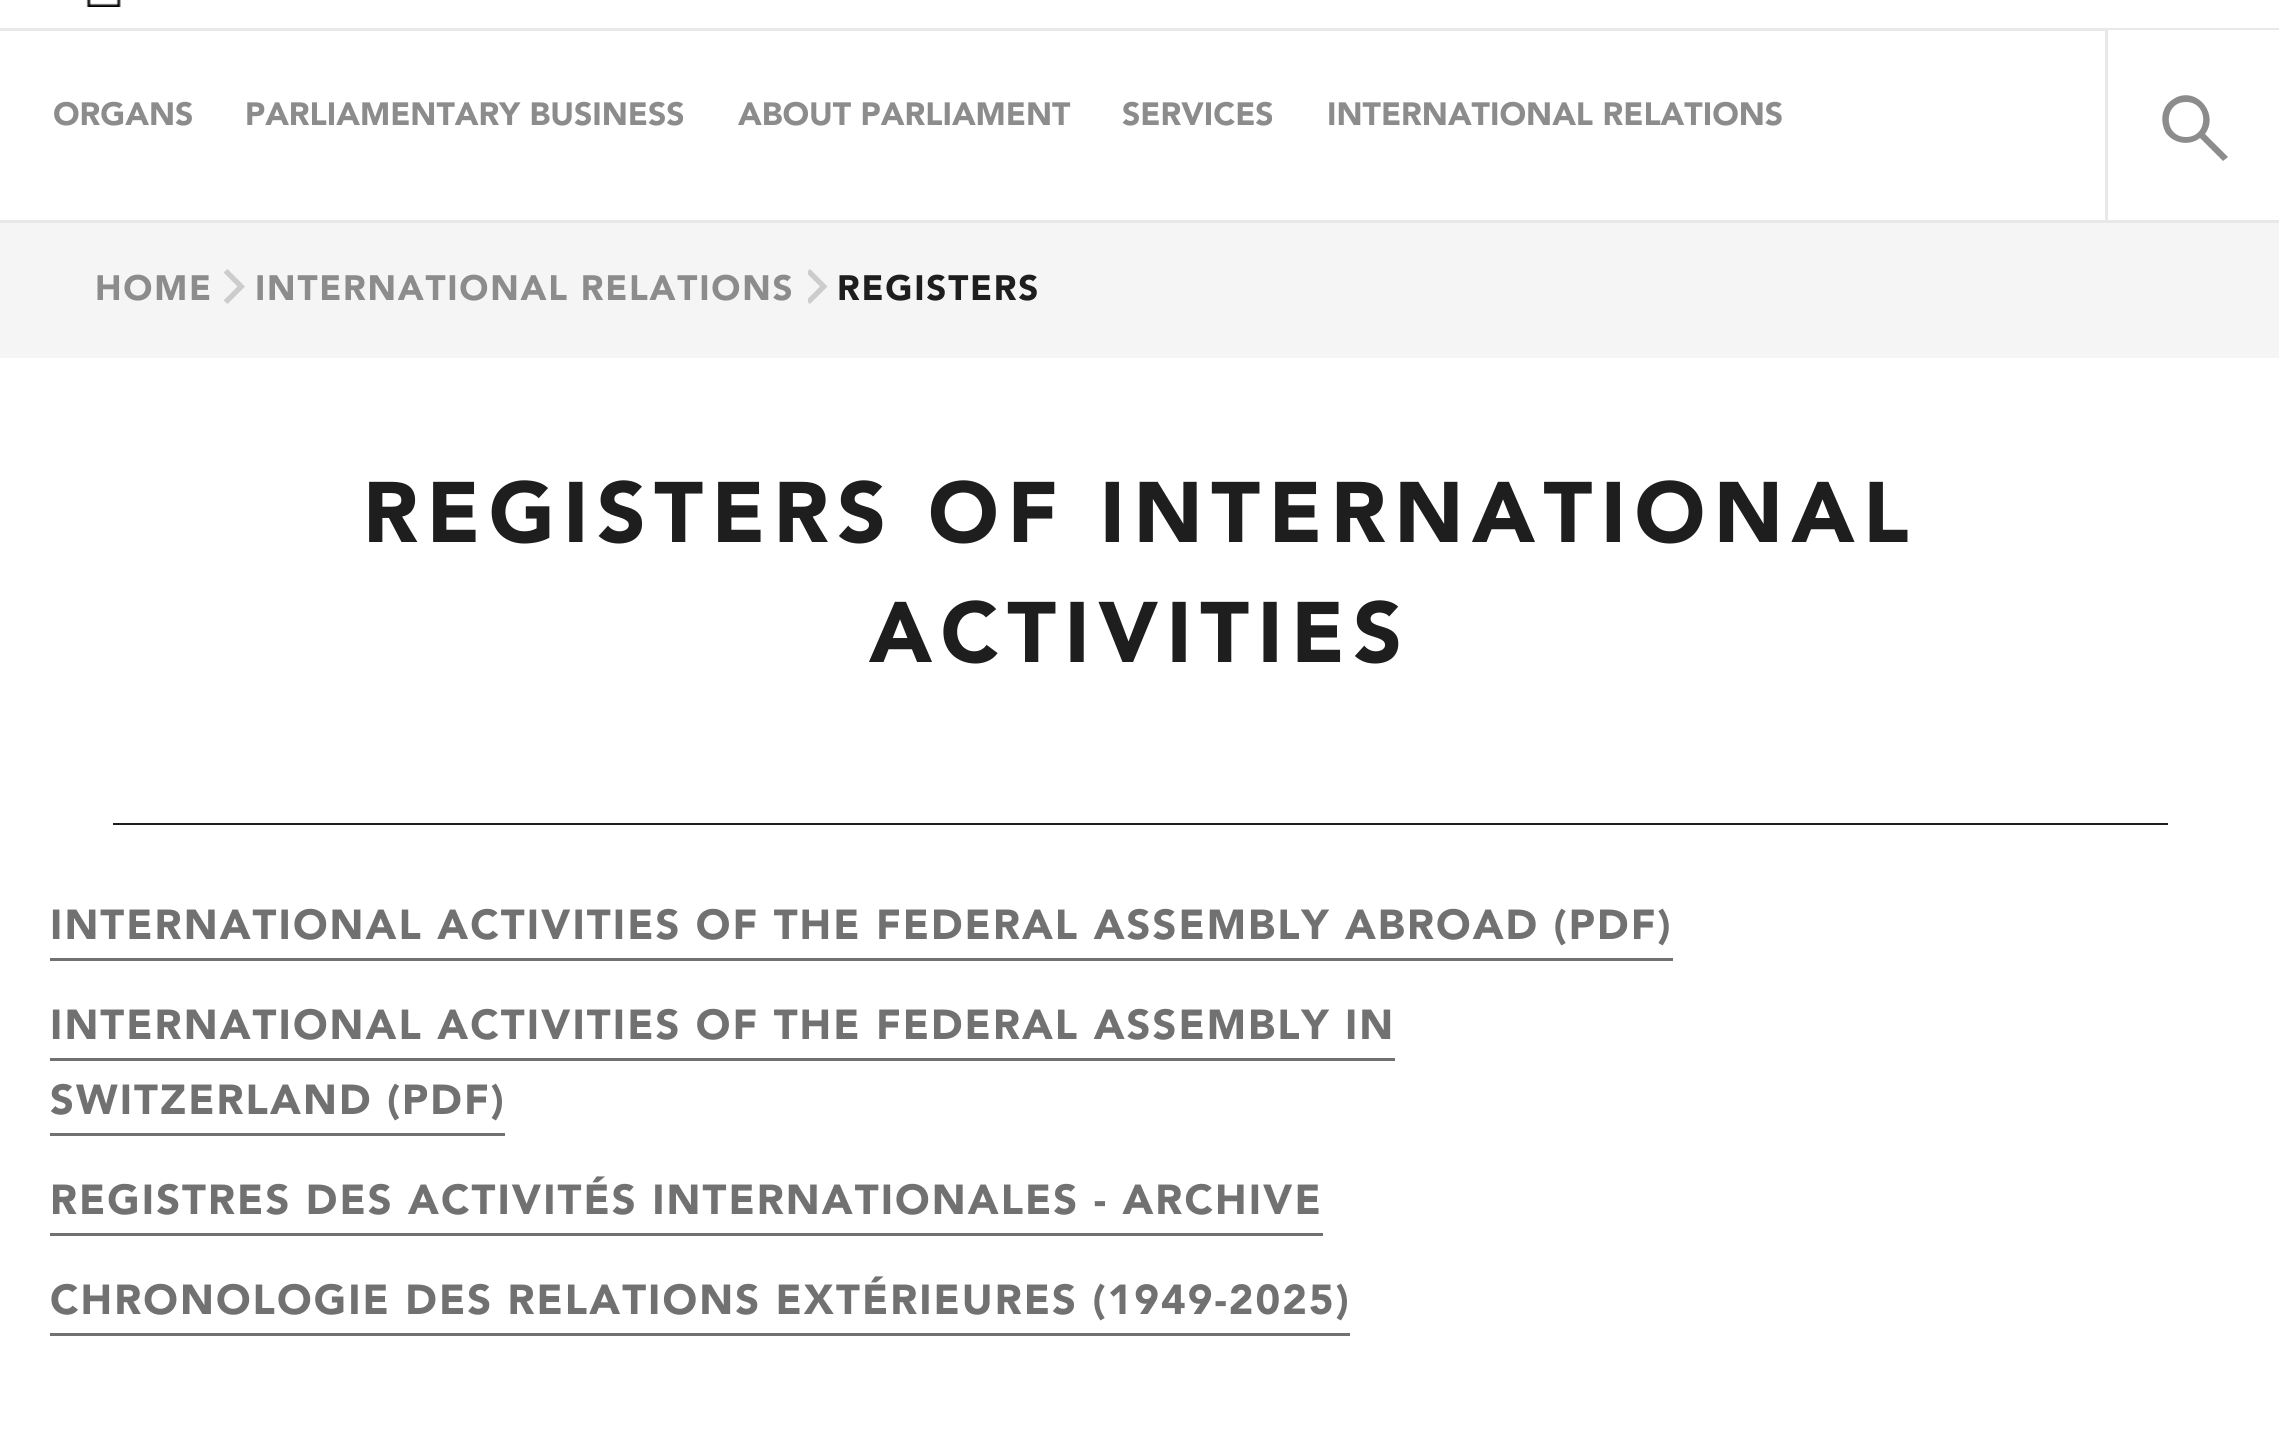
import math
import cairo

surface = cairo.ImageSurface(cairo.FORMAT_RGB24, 2279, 1438)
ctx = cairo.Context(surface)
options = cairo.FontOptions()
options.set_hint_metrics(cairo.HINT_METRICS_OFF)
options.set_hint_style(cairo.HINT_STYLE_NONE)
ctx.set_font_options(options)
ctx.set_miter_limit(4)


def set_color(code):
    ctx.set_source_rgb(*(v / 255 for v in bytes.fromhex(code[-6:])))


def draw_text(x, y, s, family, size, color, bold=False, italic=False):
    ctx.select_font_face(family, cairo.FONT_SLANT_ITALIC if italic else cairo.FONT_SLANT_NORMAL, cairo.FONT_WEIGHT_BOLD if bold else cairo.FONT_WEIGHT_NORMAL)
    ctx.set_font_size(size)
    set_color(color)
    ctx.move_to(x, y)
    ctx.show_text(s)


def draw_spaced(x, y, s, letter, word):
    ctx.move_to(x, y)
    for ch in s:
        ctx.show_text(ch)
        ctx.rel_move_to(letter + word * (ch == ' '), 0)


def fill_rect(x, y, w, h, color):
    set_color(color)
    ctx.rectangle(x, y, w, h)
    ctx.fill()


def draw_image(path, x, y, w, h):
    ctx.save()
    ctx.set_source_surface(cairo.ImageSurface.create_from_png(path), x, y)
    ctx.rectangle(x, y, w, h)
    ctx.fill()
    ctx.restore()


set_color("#f5f5f5")
ctx.paint()
fill_rect(0, 0, 2279, 220, "#ffffff")
fill_rect(0, 220, 2279, 3, "#e8e8e8")
fill_rect(0, 28, 2279, 3, "#e8e8e8")
draw_image("assets/img1.png", 86, 0, 35, 7)
draw_text(53, 125, "ORGANS", "Avenir Black", 32, "#8c8c8c")
draw_text(245, 125, "PARLIAMENTARY BUSINESS", "Avenir Black", 32, "#8c8c8c")
draw_text(738, 125, "ABOUT PARLIAMENT", "Avenir Black", 32, "#8c8c8c")
draw_text(1122, 125, "SERVICES", "Avenir Black", 32, "#8c8c8c")
draw_text(1327, 125, "INTERNATIONAL RELATIONS", "Avenir Black", 32, "#8c8c8c")
fill_rect(2108, 30, 171, 1, "#ffffff")
fill_rect(2105, 30, 3, 190, "#e8e8e8")
set_color("#8c8c8c")
ctx.new_path()
ctx.move_to(2186, 137)
ctx.curve_to(2209, 137, 2209, 102, 2186, 102)
ctx.curve_to(2163, 102, 2163, 137, 2186, 137)
ctx.close_path()
ctx.move_to(2228, 157)
ctx.line_to(2223, 161)
ctx.line_to(2200, 138)
ctx.curve_to(2190, 146, 2174, 144, 2166, 133)
ctx.curve_to(2162, 126, 2161, 117, 2164, 110)
ctx.curve_to(2166, 104, 2171, 100, 2177, 97)
ctx.curve_to(2199, 88, 2219, 115, 2205, 134)
ctx.close_path()
ctx.fill()
ctx.set_font_size(35)
draw_spaced(95, 300, "HOME", 1.75, 0)
set_color("#cccccc")
ctx.new_path()
ctx.move_to(227.5, 304)
ctx.line_to(245, 286.5)
ctx.line_to(227.5, 269)
ctx.line_to(223.5, 272.5)
ctx.line_to(237.5, 286.5)
ctx.line_to(223.5, 300.5)
ctx.close_path()
ctx.fill()
set_color("#8c8c8c")
draw_spaced(255, 300, "INTERNATIONAL RELATIONS", 1.75, 0)
ctx.save()
ctx.rectangle(808, 223, 245, 135)
ctx.clip()
set_color("#cccccc")
ctx.new_path()
ctx.move_to(810, 304)
ctx.line_to(827.5, 286.5)
ctx.line_to(810, 269)
ctx.line_to(806, 272.5)
ctx.line_to(820, 286.5)
ctx.line_to(806, 300.5)
ctx.close_path()
ctx.fill()
ctx.restore()
set_color("#1e1e1e")
draw_spaced(837, 300, "REGISTERS", 1.75, 0)
fill_rect(0, 358, 2279, 1080, "#ffffff")
ctx.set_font_size(85)
set_color("#1e1e1e")
draw_spaced(363, 542, "REGISTERS OF INTERNATIONAL", 8.5, 0)
draw_spaced(869, 662, "ACTIVITIES", 8.5, 0)
fill_rect(113, 823, 2055, 2, "#1e1e1e")
ctx.set_font_size(41.6)
set_color("#717171")
draw_spaced(50, 939, "INTERNATIONAL ACTIVITIES OF THE FEDERAL ASSEMBLY ABROAD (PDF)", 2.08, 0)
fill_rect(50, 958, 1623, 3, "#717171")
draw_spaced(50, 1039, "INTERNATIONAL ACTIVITIES OF THE FEDERAL ASSEMBLY IN", 2.08, 0)
fill_rect(50, 1058, 1345, 3, "#717171")
draw_spaced(50, 1114, "SWITZERLAND (PDF)", 2.08, 0)
fill_rect(50, 1133, 455, 3, "#717171")
draw_spaced(50, 1214, "REGISTRES DES ACTIVITÉS INTERNATIONALES - ARCHIVE", 2.08, 0)
fill_rect(50, 1233, 1273, 3, "#717171")
draw_spaced(50, 1314, "CHRONOLOGIE DES RELATIONS EXTÉRIEURES (1949-2025)", 2.08, 0)
fill_rect(50, 1333, 1300, 3, "#717171")
surface.write_to_png("output.png")
